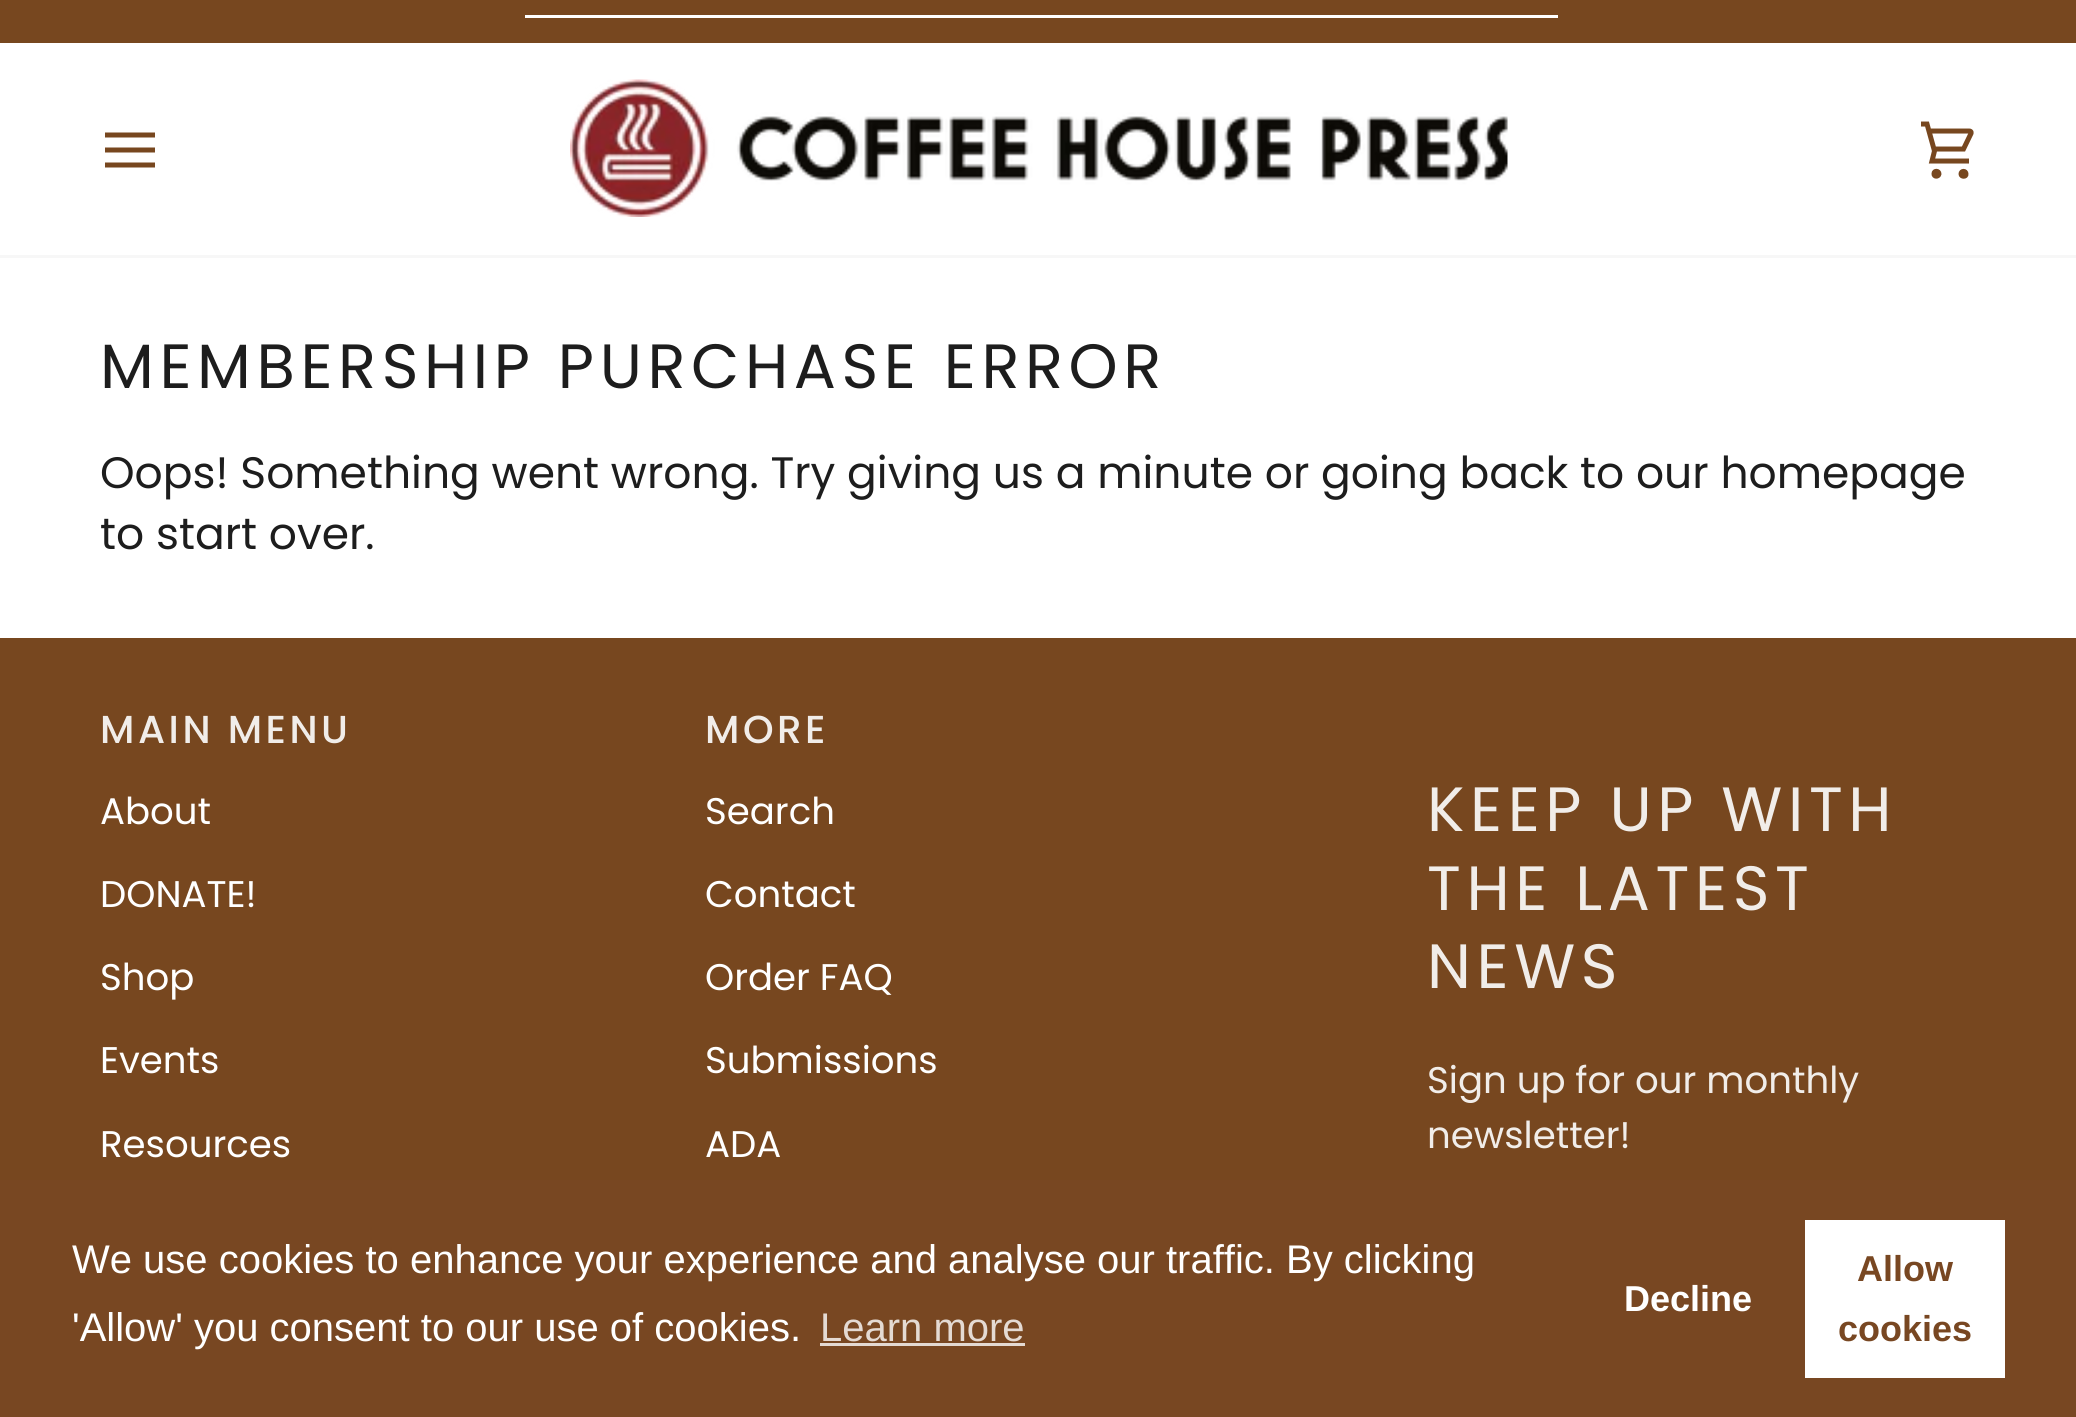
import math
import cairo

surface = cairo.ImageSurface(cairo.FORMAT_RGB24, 2076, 1417)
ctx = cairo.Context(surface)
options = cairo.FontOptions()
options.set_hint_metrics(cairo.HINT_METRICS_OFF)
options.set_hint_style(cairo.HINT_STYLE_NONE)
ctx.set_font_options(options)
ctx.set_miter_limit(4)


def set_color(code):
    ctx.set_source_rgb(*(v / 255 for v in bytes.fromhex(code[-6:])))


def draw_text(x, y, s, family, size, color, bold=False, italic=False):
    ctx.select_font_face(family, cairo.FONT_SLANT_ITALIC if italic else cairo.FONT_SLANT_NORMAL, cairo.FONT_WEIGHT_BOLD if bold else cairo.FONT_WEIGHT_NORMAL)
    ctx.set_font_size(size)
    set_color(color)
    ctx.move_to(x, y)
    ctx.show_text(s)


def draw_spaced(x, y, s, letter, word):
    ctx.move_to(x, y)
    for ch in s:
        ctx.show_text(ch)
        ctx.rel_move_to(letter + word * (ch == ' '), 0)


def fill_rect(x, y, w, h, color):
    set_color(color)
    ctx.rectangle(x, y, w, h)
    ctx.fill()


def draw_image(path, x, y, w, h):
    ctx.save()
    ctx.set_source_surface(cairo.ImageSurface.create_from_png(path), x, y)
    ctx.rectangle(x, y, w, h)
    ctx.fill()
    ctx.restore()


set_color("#ffffff")
ctx.paint()
fill_rect(0, 0, 2076, 43, "#77471f")
set_color("#ffffff")
ctx.new_path()
ctx.move_to(525, 15)
ctx.line_to(525, 18)
ctx.line_to(1556, 18)
ctx.line_to(1558, 18)
ctx.line_to(1558, 15)
ctx.close_path()
ctx.fill()
fill_rect(0, 255, 2076, 3, "#f7f7f7")
ctx.new_path()
ctx.move_to(152.5, 135)
ctx.line_to(107.5, 135)
ctx.move_to(152.5, 150)
ctx.line_to(107.5, 150)
ctx.move_to(152.5, 165)
ctx.line_to(107.5, 165)
set_color("#77471f")
ctx.set_line_width(5)
ctx.set_line_cap(cairo.LINE_CAP_SQUARE)
ctx.stroke()
draw_image("assets/img1.png", 570, 79, 938, 138)
ctx.new_path()
ctx.move_to(1969, 161)
ctx.line_to(1932, 161)
ctx.line_to(1934.5, 151)
ctx.line_to(1927, 124)
ctx.line_to(1921, 124)
ctx.move_to(1934.5, 149)
ctx.line_to(1963.5, 149)
ctx.line_to(1971, 133.5)
ctx.curve_to(1971, 133.5, 1972, 131, 1969, 131)
ctx.line_to(1929, 131)
ctx.move_to(1934, 173.5)
ctx.curve_to(1933.5, 177, 1938.5, 177, 1939, 174)
ctx.curve_to(1939, 170.5, 1934, 170.5, 1934, 173.5)
ctx.close_path()
ctx.move_to(1961, 174)
ctx.curve_to(1961, 177, 1966.5, 177, 1966, 174)
ctx.curve_to(1966, 170.5, 1961, 170.5, 1961, 174)
ctx.close_path()
ctx.set_line_cap(cairo.LINE_CAP_BUTT)
ctx.stroke()
ctx.select_font_face("Poppins")
ctx.set_font_size(62.5)
set_color("#1d1d1d")
draw_spaced(100, 388, "MEMBERSHIP PURCHASE ERROR", 5.6, 0)
draw_text(100, 488, "Oops! Something went wrong. Try giving us a minute or going back to our homepage", "Poppins", 44, "#1d1d1d")
draw_text(100, 549, "to start over.", "Poppins", 44, "#1d1d1d")
fill_rect(0, 638, 2076, 542, "#77471f")
ctx.select_font_face("Poppins Medium")
ctx.set_font_size(39)
set_color("#f1ede9")
draw_spaced(100, 743, "MAIN MENU", 3.5, 0)
draw_text(100, 824, "About", "Poppins", 37.1, "#ffffff")
draw_text(100, 907, "DONATE!", "Poppins", 37.1, "#ffffff")
draw_text(100, 990, "Shop", "Poppins", 37.1, "#ffffff")
draw_text(100, 1073, "Events", "Poppins", 37.1, "#ffffff")
draw_text(100, 1157, "Resources", "Poppins", 37.1, "#ffffff")
ctx.select_font_face("Poppins Medium")
ctx.set_font_size(39)
set_color("#f1ede9")
draw_spaced(705, 743, "MORE", 3.5, 0)
draw_text(705, 824, "Search", "Poppins", 37.1, "#ffffff")
draw_text(705, 907, "Contact", "Poppins", 37.1, "#ffffff")
draw_text(705, 990, "Order FAQ", "Poppins", 37.1, "#ffffff")
draw_text(705, 1073, "Submissions", "Poppins", 37.1, "#ffffff")
draw_text(705, 1157, "ADA", "Poppins", 37.1, "#ffffff")
ctx.set_font_size(62.5)
set_color("#f1ede9")
draw_spaced(1427, 831, "KEEP UP WITH", 5.6, 0)
draw_spaced(1427, 910, "THE LATEST", 5.6, 0)
draw_spaced(1427, 988, "NEWS", 5.6, 0)
draw_text(1427, 1093, "Sign up for our monthly", "Poppins", 37.1, "#f1ede9")
draw_text(1427, 1148, "newsletter!", "Poppins", 37.1, "#f1ede9")
fill_rect(0, 1180, 2076, 237, "#784722")
draw_text(72, 1273, "We use cookies to enhance your experience and analyse our traffic. By clicking", "Liberation Sans", 40, "#ffffff")
draw_text(72, 1341, "'Allow' you consent to our use of cookies.", "Liberation Sans", 40, "#ffffff")
draw_text(820, 1341, "Learn more", "Liberation Sans", 40, "#e4dad3")
fill_rect(820, 1343, 205, 3, "#e4dad3")
draw_text(1624, 1311, "Decline", "Liberation Sans", 36, "#ffffff", bold=True)
fill_rect(1805, 1220, 200, 158, "#ffffff")
draw_text(1857, 1281, "Allow", "Liberation Sans", 36, "#784722", bold=True)
draw_text(1838, 1341, "cookies", "Liberation Sans", 36, "#784722", bold=True)
surface.write_to_png("output.png")
